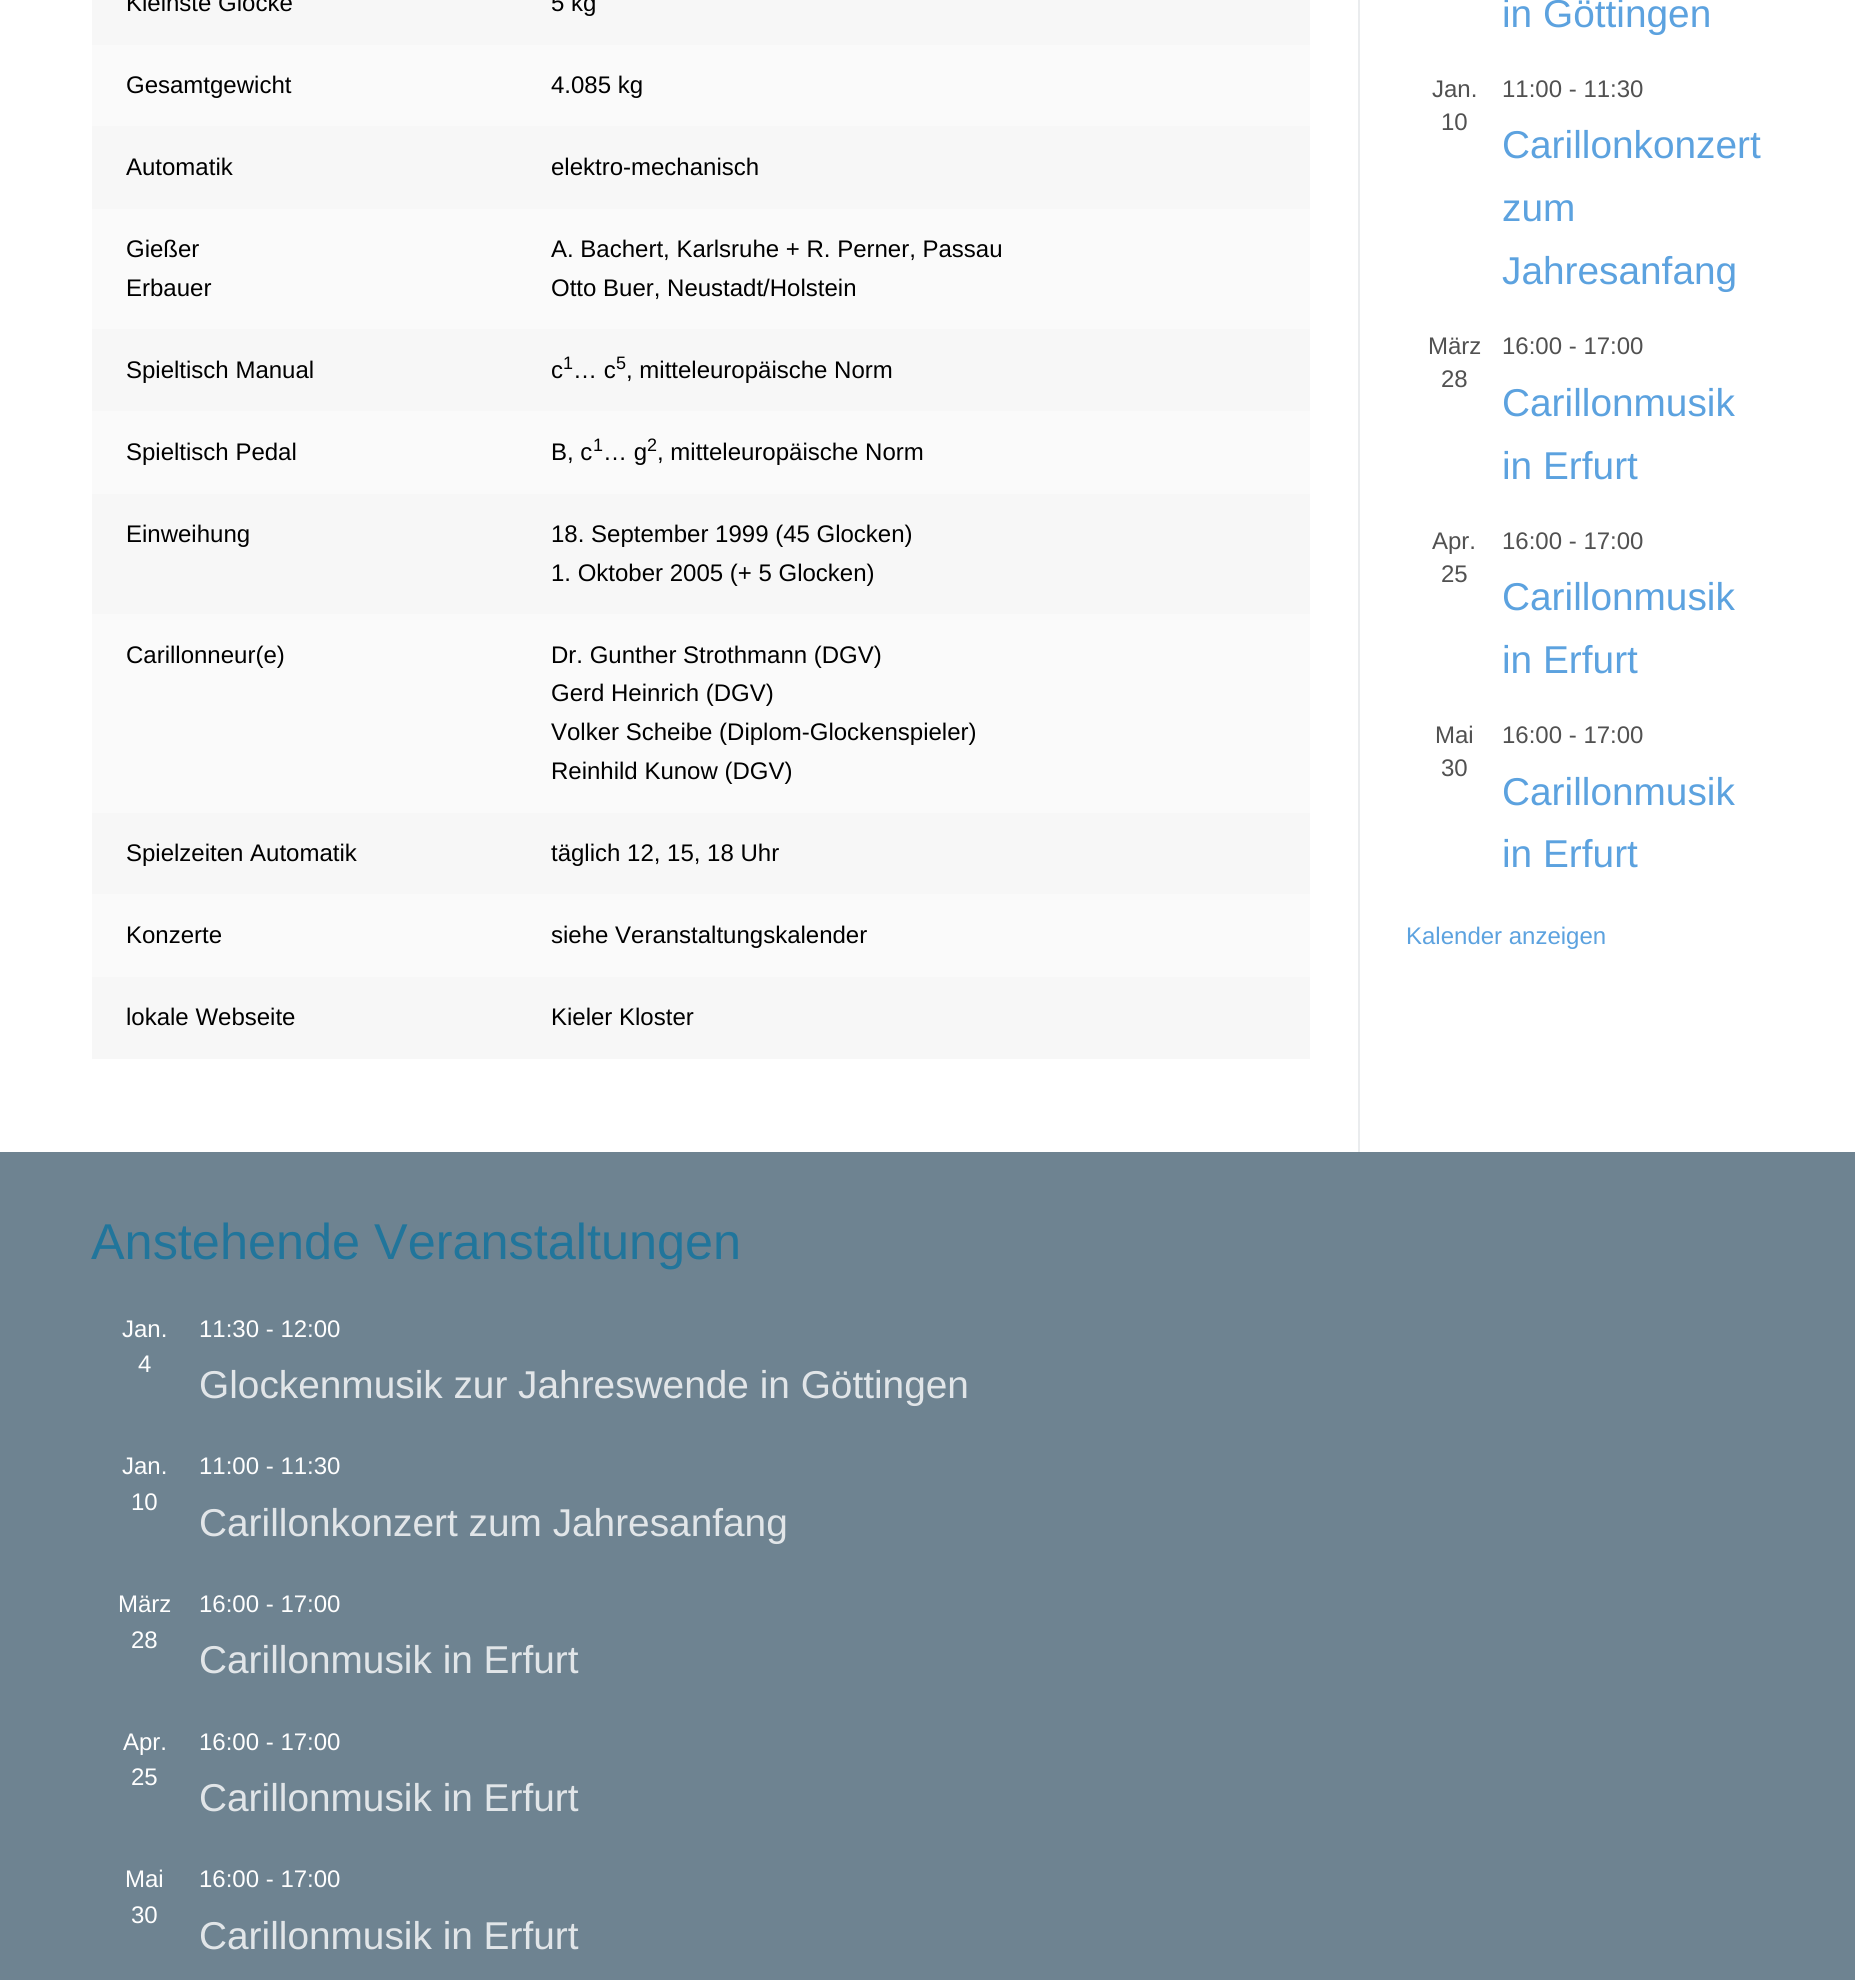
import math
import cairo

surface = cairo.ImageSurface(cairo.FORMAT_RGB24, 1855, 1980)
ctx = cairo.Context(surface)
options = cairo.FontOptions()
options.set_hint_metrics(cairo.HINT_METRICS_OFF)
options.set_hint_style(cairo.HINT_STYLE_NONE)
ctx.set_font_options(options)
ctx.set_miter_limit(4)


def set_color(code):
    ctx.set_source_rgb(*(v / 255 for v in bytes.fromhex(code[-6:])))


def draw_text(x, y, s, family, size, color, bold=False, italic=False):
    ctx.select_font_face(family, cairo.FONT_SLANT_ITALIC if italic else cairo.FONT_SLANT_NORMAL, cairo.FONT_WEIGHT_BOLD if bold else cairo.FONT_WEIGHT_NORMAL)
    ctx.set_font_size(size)
    set_color(color)
    ctx.move_to(x, y)
    ctx.show_text(s)


def fill_rect(x, y, w, h, color):
    set_color(color)
    ctx.rectangle(x, y, w, h)
    ctx.fill()


set_color("#ffffff")
ctx.paint()
fill_rect(1358, 0, 2, 1152, "#eaecee")
fill_rect(92, 0, 1218, 45, "#f7f7f7")
draw_text(126, 11, "Kleinste Glocke", "Liberation Sans", 24, "#000000")
draw_text(551, 11, "5 kg", "Liberation Sans", 24, "#000000")
fill_rect(92, 45, 1218, 81, "#fafafa")
draw_text(126, 93, "Gesamtgewicht", "Liberation Sans", 24, "#000000")
draw_text(551, 93, "4.085 kg", "Liberation Sans", 24, "#000000")
fill_rect(92, 126, 1218, 83, "#f7f7f7")
draw_text(126, 175, "Automatik", "Liberation Sans", 24, "#000000")
draw_text(551, 175, "elektro-mechanisch", "Liberation Sans", 24, "#000000")
fill_rect(92, 209, 1218, 120, "#fafafa")
draw_text(126, 257, "Gießer", "Liberation Sans", 24, "#000000")
draw_text(126, 296, "Erbauer", "Liberation Sans", 24, "#000000")
draw_text(551, 257, "A. Bachert, Karlsruhe + R. Perner, Passau", "Liberation Sans", 24, "#000000")
draw_text(551, 296, "Otto Buer, Neustadt/Holstein", "Liberation Sans", 24, "#000000")
fill_rect(92, 329, 1218, 82, "#f7f7f7")
draw_text(126, 378, "Spieltisch Manual", "Liberation Sans", 24, "#000000")
draw_text(551, 378, "c", "Liberation Sans", 24, "#000000")
draw_text(563, 369, "1", "Liberation Sans", 18, "#000000")
draw_text(573, 378, "… c", "Liberation Sans", 24, "#000000")
draw_text(616, 369, "5", "Liberation Sans", 18, "#000000")
draw_text(626, 378, ", mitteleuropäische Norm", "Liberation Sans", 24, "#000000")
fill_rect(92, 411, 1218, 83, "#fafafa")
draw_text(126, 460, "Spieltisch Pedal", "Liberation Sans", 24, "#000000")
draw_text(551, 460, "B, c", "Liberation Sans", 24, "#000000")
draw_text(593, 451, "1", "Liberation Sans", 18, "#000000")
draw_text(603, 460, "… g", "Liberation Sans", 24, "#000000")
draw_text(647, 451, "2", "Liberation Sans", 18, "#000000")
draw_text(657, 460, ", mitteleuropäische Norm", "Liberation Sans", 24, "#000000")
fill_rect(92, 494, 1218, 120, "#f7f7f7")
draw_text(126, 542, "Einweihung", "Liberation Sans", 24, "#000000")
draw_text(551, 542, "18. September 1999 (45 Glocken)", "Liberation Sans", 24, "#000000")
draw_text(551, 581, "1. Oktober 2005 (+ 5 Glocken)", "Liberation Sans", 24, "#000000")
fill_rect(92, 614, 1218, 199, "#fafafa")
draw_text(126, 663, "Carillonneur(e)", "Liberation Sans", 24, "#000000")
draw_text(551, 663, "Dr. Gunther Strothmann (DGV)", "Liberation Sans", 24, "#000000")
draw_text(551, 701, "Gerd Heinrich (DGV)", "Liberation Sans", 24, "#000000")
draw_text(551, 740, "Volker Scheibe (Diplom-Glockenspieler)", "Liberation Sans", 24, "#000000")
draw_text(551, 779, "Reinhild Kunow (DGV)", "Liberation Sans", 24, "#000000")
fill_rect(92, 813, 1218, 81, "#f7f7f7")
draw_text(126, 861, "Spielzeiten Automatik", "Liberation Sans", 24, "#000000")
draw_text(551, 861, "täglich 12, 15, 18 Uhr", "Liberation Sans", 24, "#000000")
fill_rect(92, 894, 1218, 83, "#fafafa")
draw_text(126, 943, "Konzerte", "Liberation Sans", 24, "#000000")
draw_text(551, 943, "siehe Veranstaltungskalender", "Liberation Sans", 24, "#000000")
fill_rect(92, 977, 1218, 82, "#f7f7f7")
draw_text(126, 1025, "lokale Webseite", "Liberation Sans", 24, "#000000")
draw_text(551, 1025, "Kieler Kloster", "Liberation Sans", 24, "#000000")
draw_text(1502, 27, "in Göttingen", "Liberation Sans", 38.8, "#5ca2df")
draw_text(1432, 97, "Jan.", "Liberation Sans", 24, "#515151")
draw_text(1441, 130, "10", "Liberation Sans", 24, "#515151")
draw_text(1502, 97, "11:00 - 11:30", "Liberation Sans", 24, "#515151")
draw_text(1502, 158, "Carillonkonzert", "Liberation Sans", 38.8, "#5ca2df")
draw_text(1502, 221, "zum", "Liberation Sans", 38.8, "#5ca2df")
draw_text(1502, 284, "Jahresanfang", "Liberation Sans", 38.8, "#5ca2df")
draw_text(1428, 354, "März", "Liberation Sans", 24, "#515151")
draw_text(1441, 387, "28", "Liberation Sans", 24, "#515151")
draw_text(1502, 354, "16:00 - 17:00", "Liberation Sans", 24, "#515151")
draw_text(1502, 416, "Carillonmusik", "Liberation Sans", 38.8, "#5ca2df")
draw_text(1502, 479, "in Erfurt", "Liberation Sans", 38.8, "#5ca2df")
draw_text(1432, 549, "Apr.", "Liberation Sans", 24, "#515151")
draw_text(1441, 582, "25", "Liberation Sans", 24, "#515151")
draw_text(1502, 549, "16:00 - 17:00", "Liberation Sans", 24, "#515151")
draw_text(1502, 610, "Carillonmusik", "Liberation Sans", 38.8, "#5ca2df")
draw_text(1502, 673, "in Erfurt", "Liberation Sans", 38.8, "#5ca2df")
draw_text(1435, 743, "Mai", "Liberation Sans", 24, "#515151")
draw_text(1441, 776, "30", "Liberation Sans", 24, "#515151")
draw_text(1502, 743, "16:00 - 17:00", "Liberation Sans", 24, "#515151")
draw_text(1502, 805, "Carillonmusik", "Liberation Sans", 38.8, "#5ca2df")
draw_text(1502, 867, "in Erfurt", "Liberation Sans", 38.8, "#5ca2df")
draw_text(1406, 944, "Kalender anzeigen", "Liberation Sans", 24, "#5ca2df")
fill_rect(0, 1152, 1855, 828, "#6e8391")
draw_text(91, 1259, "Anstehende Veranstaltungen", "Liberation Sans", 50.4, "#21759b")
draw_text(122, 1337, "Jan.", "Liberation Sans", 24, "#fefefe")
draw_text(138, 1372, "4", "Liberation Sans", 24, "#fefefe")
draw_text(199, 1337, "11:30 - 12:00", "Liberation Sans", 24, "#fefefe")
draw_text(199, 1398, "Glockenmusik zur Jahreswende in Göttingen", "Liberation Sans", 38.8, "#e1e5e8")
draw_text(122, 1474, "Jan.", "Liberation Sans", 24, "#fefefe")
draw_text(131, 1510, "10", "Liberation Sans", 24, "#fefefe")
draw_text(199, 1474, "11:00 - 11:30", "Liberation Sans", 24, "#fefefe")
draw_text(199, 1536, "Carillonkonzert zum Jahresanfang", "Liberation Sans", 38.8, "#e1e5e8")
draw_text(118, 1612, "März", "Liberation Sans", 24, "#fefefe")
draw_text(131, 1648, "28", "Liberation Sans", 24, "#fefefe")
draw_text(199, 1612, "16:00 - 17:00", "Liberation Sans", 24, "#fefefe")
draw_text(199, 1673, "Carillonmusik in Erfurt", "Liberation Sans", 38.8, "#e1e5e8")
draw_text(123, 1750, "Apr.", "Liberation Sans", 24, "#fefefe")
draw_text(131, 1785, "25", "Liberation Sans", 24, "#fefefe")
draw_text(199, 1750, "16:00 - 17:00", "Liberation Sans", 24, "#fefefe")
draw_text(199, 1811, "Carillonmusik in Erfurt", "Liberation Sans", 38.8, "#e1e5e8")
draw_text(125, 1887, "Mai", "Liberation Sans", 24, "#fefefe")
draw_text(131, 1923, "30", "Liberation Sans", 24, "#fefefe")
draw_text(199, 1887, "16:00 - 17:00", "Liberation Sans", 24, "#fefefe")
draw_text(199, 1949, "Carillonmusik in Erfurt", "Liberation Sans", 38.8, "#e1e5e8")
surface.write_to_png("output.png")
